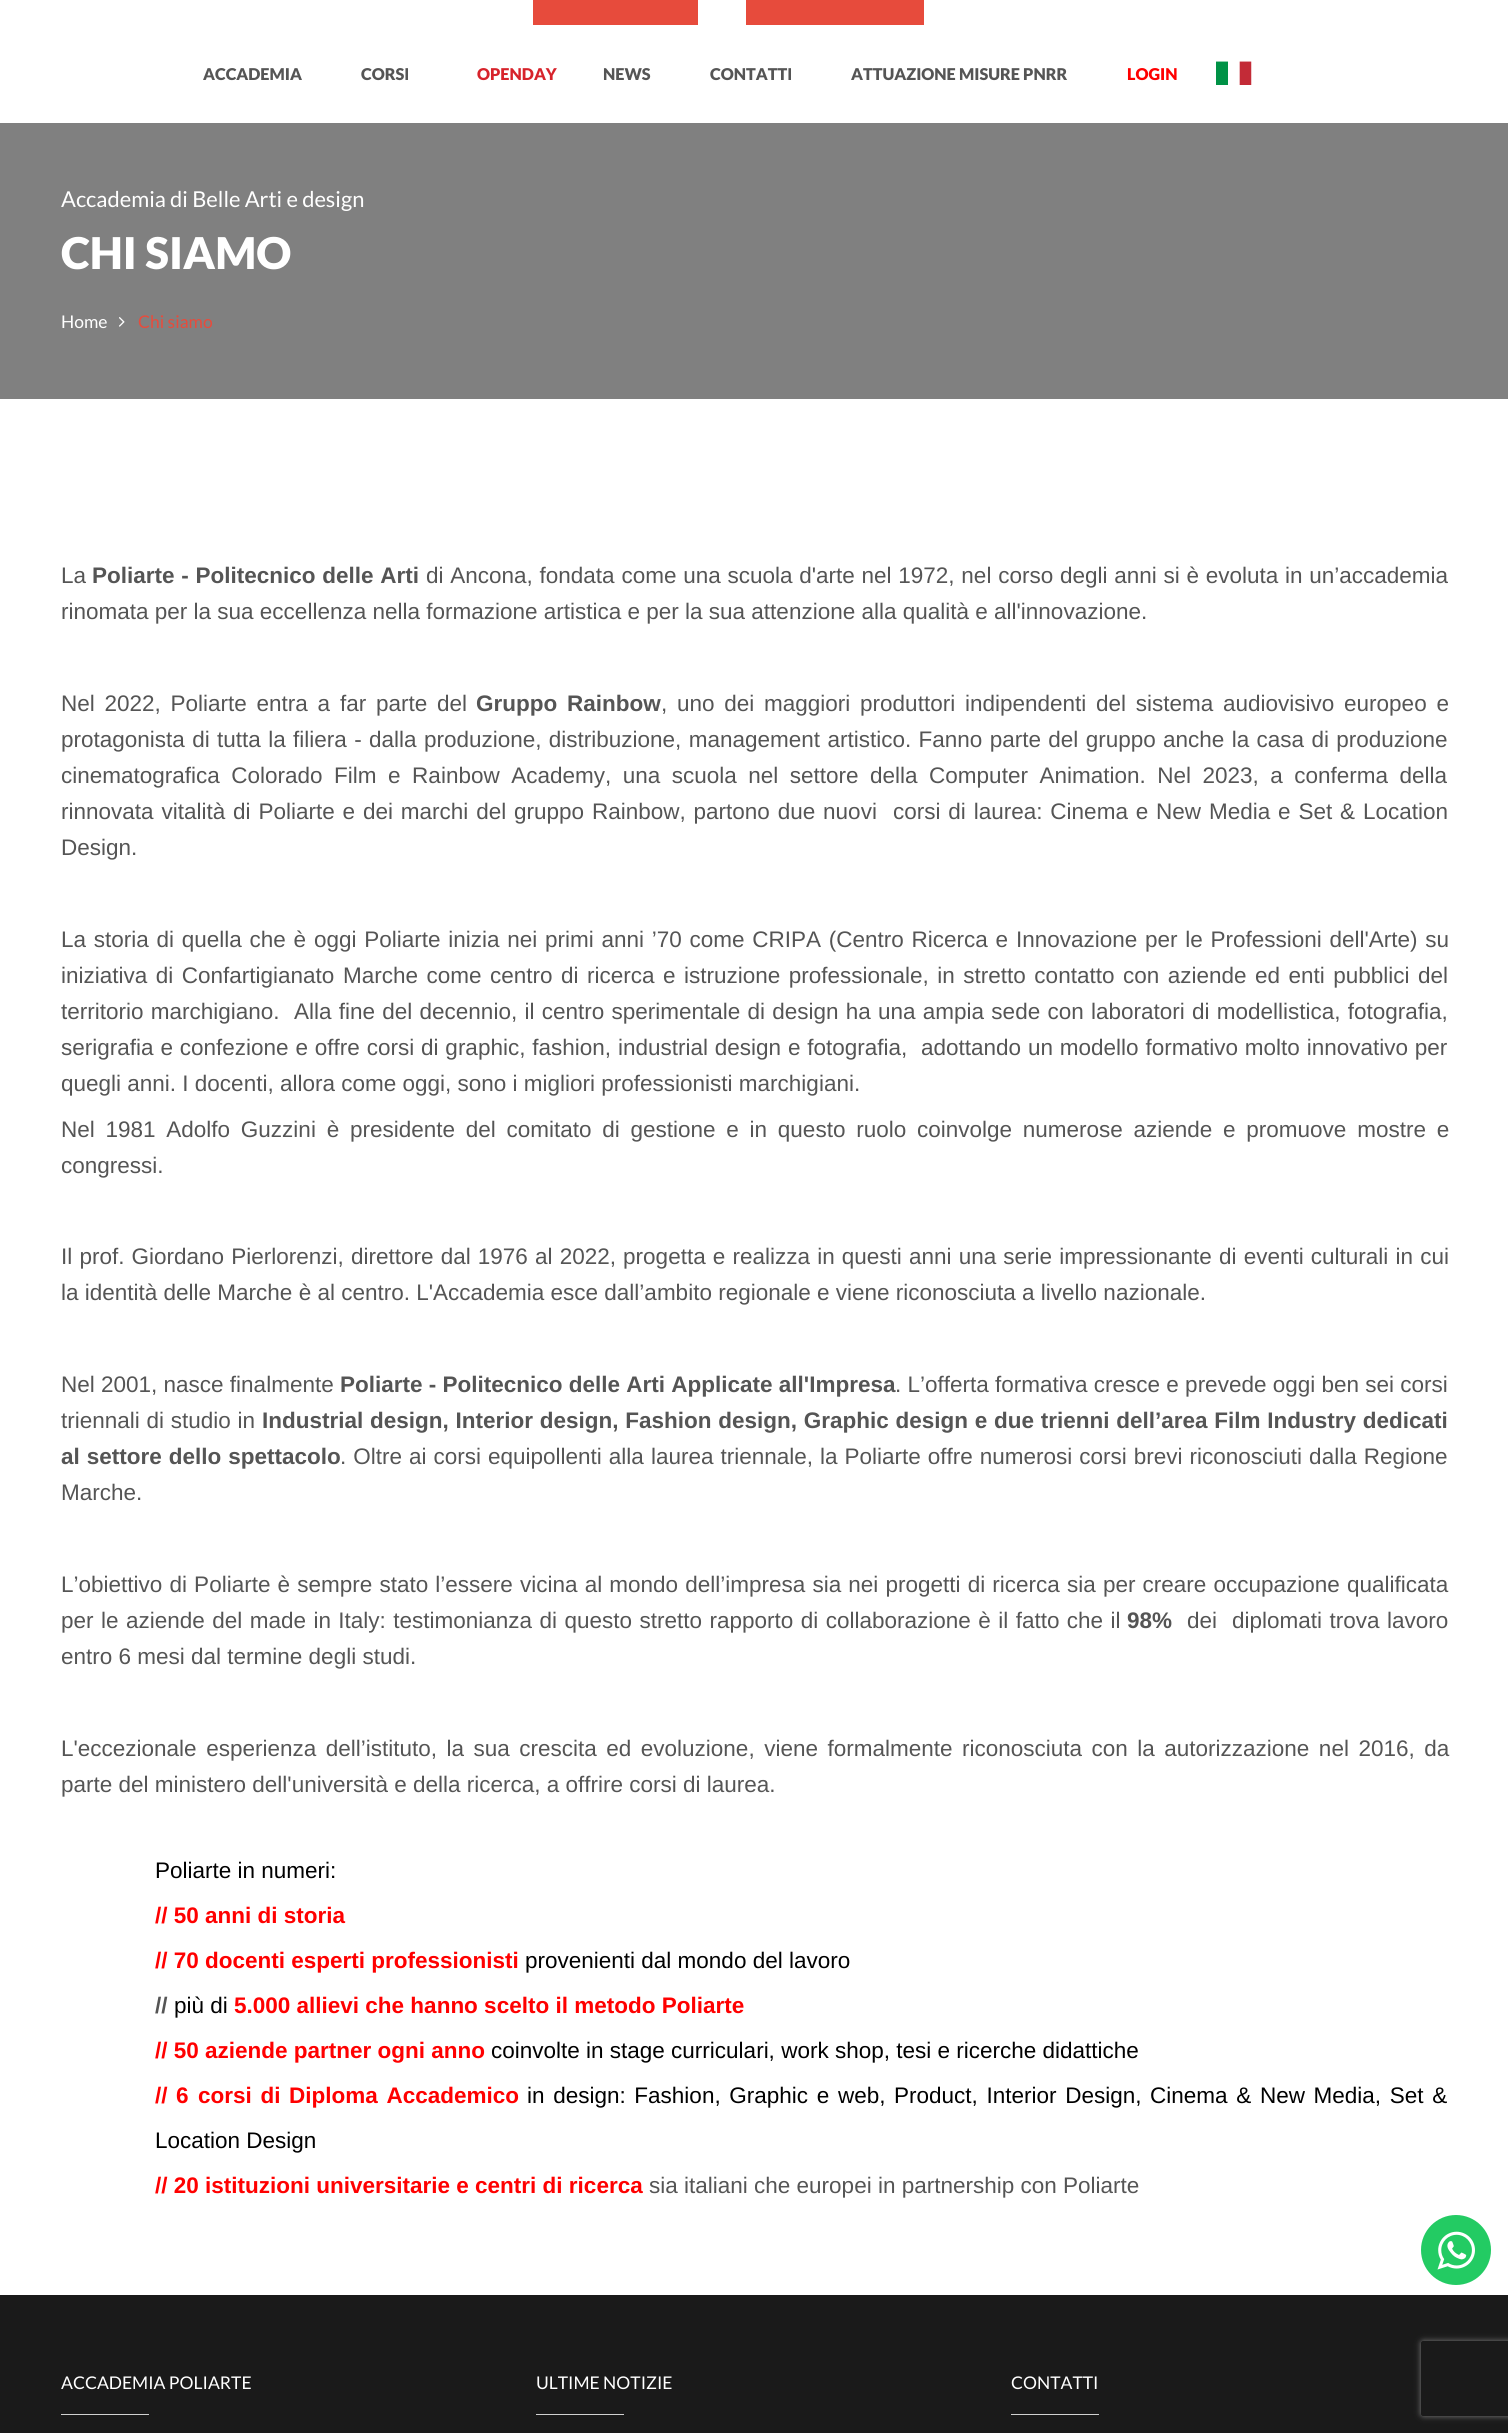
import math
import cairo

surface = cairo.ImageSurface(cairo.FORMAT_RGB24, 1508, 2433)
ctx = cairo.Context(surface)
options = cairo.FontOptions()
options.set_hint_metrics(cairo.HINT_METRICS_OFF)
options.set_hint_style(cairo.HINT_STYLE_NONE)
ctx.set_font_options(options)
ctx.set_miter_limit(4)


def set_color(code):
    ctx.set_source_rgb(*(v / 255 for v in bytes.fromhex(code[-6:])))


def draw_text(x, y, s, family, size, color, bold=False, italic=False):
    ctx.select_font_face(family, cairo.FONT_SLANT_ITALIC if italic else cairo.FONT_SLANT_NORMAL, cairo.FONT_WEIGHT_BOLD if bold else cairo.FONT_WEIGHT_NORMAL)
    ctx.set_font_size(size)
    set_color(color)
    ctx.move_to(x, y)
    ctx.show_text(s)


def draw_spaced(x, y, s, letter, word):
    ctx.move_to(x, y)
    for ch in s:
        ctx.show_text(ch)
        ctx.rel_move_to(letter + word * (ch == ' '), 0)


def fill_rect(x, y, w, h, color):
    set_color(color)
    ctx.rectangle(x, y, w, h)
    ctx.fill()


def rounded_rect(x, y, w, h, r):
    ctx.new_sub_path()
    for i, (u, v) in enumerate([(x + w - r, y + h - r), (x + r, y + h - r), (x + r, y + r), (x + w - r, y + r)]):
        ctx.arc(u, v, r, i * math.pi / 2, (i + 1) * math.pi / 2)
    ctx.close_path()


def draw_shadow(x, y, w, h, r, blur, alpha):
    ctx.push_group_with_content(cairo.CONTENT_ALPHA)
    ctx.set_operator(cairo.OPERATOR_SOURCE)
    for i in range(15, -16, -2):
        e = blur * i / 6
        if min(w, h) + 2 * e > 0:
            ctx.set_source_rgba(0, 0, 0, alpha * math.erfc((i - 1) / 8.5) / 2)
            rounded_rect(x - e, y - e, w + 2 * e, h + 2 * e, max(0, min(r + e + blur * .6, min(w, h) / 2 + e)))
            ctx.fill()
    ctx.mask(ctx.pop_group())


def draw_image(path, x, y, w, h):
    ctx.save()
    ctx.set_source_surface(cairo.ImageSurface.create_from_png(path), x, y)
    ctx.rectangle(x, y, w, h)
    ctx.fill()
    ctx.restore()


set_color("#ffffff")
ctx.paint()
fill_rect(533, 0, 165, 25, "#e74b3c")
fill_rect(746, 0, 178, 25, "#e74b3c")
draw_text(203, 80, "ACCADEMIA", "Lato Black", 16.25, "#555555")
draw_text(361, 80, "CORSI", "Lato Black", 16.25, "#555555")
draw_text(477, 80, "OPENDAY", "Lato Black", 16.25, "#d7232b")
draw_text(603, 80, "NEWS", "Lato Black", 16.25, "#555555")
draw_text(710, 80, "CONTATTI", "Lato Black", 16.25, "#555555")
draw_text(851, 80, "ATTUAZIONE MISURE PNRR", "Lato Black", 16.25, "#555555")
draw_text(1127, 80, "LOGIN", "Lato Black", 16.25, "#ff0000")
draw_image("assets/img1.png", 1216, 61, 36, 24)
fill_rect(0, 123, 1508, 276, "#808080")
draw_text(61, 207, "Accademia di Belle Arti e design", "Lato", 21.9, "#ffffff")
draw_text(61, 269, "CHI SIAMO", "Lato Black", 43.75, "#ffffff")
draw_text(61, 328, "Home", "Lato", 17.5, "#ffffff")
draw_image("assets/img2.png", 119, 317, 6, 10)
draw_text(138, 328, "Chi siamo", "Lato", 17.5, "#e74b3c")
draw_text(61, 583, "La", "Liberation Sans", 22.5, "#555555")
ctx.select_font_face("Liberation Sans", cairo.FONT_SLANT_NORMAL, cairo.FONT_WEIGHT_BOLD)
draw_spaced(92, 583, "Poliarte - Politecnico delle Arti", 0, 0.5)
ctx.select_font_face("Liberation Sans")
draw_spaced(426, 583, "di Ancona, fondata come una scuola d'arte nel 1972, nel corso degli anni si è evoluta in un’accademia", 0, 0.5)
draw_text(61, 619, "rinomata per la sua eccellenza nella formazione artistica e per la sua attenzione alla qualità e all'innovazione.", "Liberation Sans", 22.5, "#555555")
draw_spaced(61, 711, "Nel 2022, Poliarte entra a far parte del", 0, 3.5)
ctx.select_font_face("Liberation Sans", cairo.FONT_SLANT_NORMAL, cairo.FONT_WEIGHT_BOLD)
draw_spaced(476, 711, "Gruppo Rainbow", 0, 3.5)
ctx.select_font_face("Liberation Sans")
draw_spaced(661, 711, ", uno dei maggiori produttori indipendenti del sistema audiovisivo europeo e", 0, 3.5)
draw_spaced(61, 747, "protagonista di tutta la filiera - dalla produzione, distribuzione, management artistico. Fanno parte del gruppo anche la casa di produzione", 0, 1.1)
draw_spaced(61, 783, "cinematografica Colorado Film e Rainbow Academy, una scuola nel settore della Computer Animation. Nel 2023, a conferma della", 0, 5.25)
draw_spaced(61, 819, "rinnovata vitalità di Poliarte e dei marchi del gruppo Rainbow, partono due nuovi", 0, 1.6)
draw_spaced(893, 819, "corsi di laurea: Cinema e New Media e Set & Location", 0, 1.6)
draw_text(61, 855, "Design.", "Liberation Sans", 22.5, "#555555")
draw_spaced(61, 947, "La storia di quella che è oggi Poliarte inizia nei primi anni ’70 come CRIPA (Centro Ricerca e Innovazione per le Professioni dell'Arte) su", 0, 1.5)
draw_spaced(61, 983, "iniziativa di Confartigianato Marche come centro di ricerca e istruzione professionale, in stretto contatto con aziende ed enti pubblici del", 0, 2.25)
draw_spaced(61, 1019, "territorio marchigiano.", 0, 1)
draw_spaced(294, 1019, "Alla fine del decennio, il centro sperimentale di design ha una ampia sede con laboratori di modellistica, fotografia,", 0, 1)
draw_spaced(61, 1055, "serigrafia e confezione e offre corsi di graphic, fashion, industrial design e fotografia,", 0, 0.6)
draw_spaced(921, 1055, "adottando un modello formativo molto innovativo per", 0, 0.6)
draw_text(61, 1091, "quegli anni. I docenti, allora come oggi, sono i migliori professionisti marchigiani.", "Liberation Sans", 22.5, "#555555")
draw_spaced(61, 1137, "Nel 1981 Adolfo Guzzini è presidente del comitato di gestione e in questo ruolo coinvolge numerose aziende e promuove mostre e", 0, 4.5)
draw_text(61, 1173, "congressi.", "Liberation Sans", 22.5, "#555555")
draw_spaced(61, 1264, "Il prof. Giordano Pierlorenzi, direttore dal 1976 al 2022, progetta e realizza in questi anni una serie impressionante di eventi culturali in cui", 0, 0.9)
draw_text(61, 1300, "la identità delle Marche è al centro. L'Accademia esce dall’ambito regionale e viene riconosciuta a livello nazionale.", "Liberation Sans", 22.5, "#555555")
draw_text(61, 1392, "Nel 2001, nasce finalmente", "Liberation Sans", 22.5, "#555555")
draw_text(340, 1392, "Poliarte - Politecnico delle Arti Applicate all'Impresa", "Liberation Sans", 22.5, "#555555", bold=True)
draw_text(895, 1392, ". L’offerta formativa cresce e prevede oggi ben sei corsi", "Liberation Sans", 22.5, "#555555")
draw_spaced(61, 1428, "triennali di studio in", 0, 0.5)
ctx.select_font_face("Liberation Sans", cairo.FONT_SLANT_NORMAL, cairo.FONT_WEIGHT_BOLD)
draw_spaced(262, 1428, "Industrial design, Interior design, Fashion design, Graphic design e due trienni dell’area Film Industry dedicati", 0, 0.5)
draw_spaced(61, 1464, "al settore dello spettacolo", 0, 0.75)
ctx.select_font_face("Liberation Sans")
draw_spaced(340, 1464, ". Oltre ai corsi equipollenti alla laurea triennale, la Poliarte offre numerosi corsi brevi riconosciuti dalla Regione", 0, 0.75)
draw_text(61, 1500, "Marche.", "Liberation Sans", 22.5, "#555555")
draw_spaced(61, 1592, "L’obiettivo di Poliarte è sempre stato l’essere vicina al mondo dell’impresa sia nei progetti di ricerca sia per creare occupazione qualificata", 0, 0.9)
draw_spaced(61, 1628, "per le aziende del made in Italy: testimonianza di questo stretto rapporto di collaborazione è il fatto che il", 0, 1.2)
draw_text(1127, 1628, "98%", "Liberation Sans", 22.5, "#555555", bold=True)
draw_text(1187, 1628, "dei", "Liberation Sans", 22.5, "#555555")
draw_spaced(1232, 1628, "diplomati trova lavoro", 0, 1.2)
draw_text(61, 1664, "entro 6 mesi dal termine degli studi.", "Liberation Sans", 22.5, "#555555")
draw_spaced(61, 1756, "L'eccezionale esperienza dell’istituto, la sua crescita ed evoluzione, viene formalmente riconosciuta con la autorizzazione nel 2016, da", 0, 3.25)
draw_text(61, 1792, "parte del ministero dell'università e della ricerca, a offrire corsi di laurea.", "Liberation Sans", 22.5, "#555555")
draw_text(155, 1878, "Poliarte in numeri:", "Liberation Sans", 22.5, "#000000")
draw_text(155, 1923, "// 50 anni di storia", "Liberation Sans", 22.5, "#ff0000", bold=True)
draw_text(155, 1968, "// 70 docenti esperti professionisti", "Liberation Sans", 22.5, "#ff0000", bold=True)
draw_text(525, 1968, "provenienti dal mondo del lavoro", "Liberation Sans", 22.5, "#000000")
draw_text(155, 2013, "//", "Liberation Sans", 22.5, "#555555", bold=True)
draw_text(174, 2013, "più di", "Liberation Sans", 22.5, "#000000")
draw_text(234, 2013, "5.000 allievi che hanno scelto il metodo Poliarte", "Liberation Sans", 22.5, "#ff0000", bold=True)
draw_text(155, 2058, "// 50 aziende partner ogni anno", "Liberation Sans", 22.5, "#ff0000", bold=True)
draw_text(491, 2058, "coinvolte in stage curriculari, work shop, tesi e ricerche didattiche", "Liberation Sans", 22.5, "#000000")
draw_text(155, 2103, "//", "Liberation Sans", 22.5, "#ff0000", bold=True)
draw_text(176, 2103, "6", "Liberation Sans", 22.5, "#ff0000", bold=True)
draw_spaced(198, 2103, "corsi di Diploma Accademico", 0, 2.4)
ctx.select_font_face("Liberation Sans")
set_color("#000000")
draw_spaced(527, 2103, "in design: Fashion, Graphic e web, Product, Interior Design, Cinema & New Media, Set &", 0, 2.4)
draw_text(155, 2148, "Location Design", "Liberation Sans", 22.5, "#000000")
draw_text(155, 2193, "// 20 istituzioni universitarie e centri di ricerca", "Liberation Sans", 22.5, "#ff0000", bold=True)
draw_text(649, 2193, "sia italiani che europei in partnership con Poliarte", "Liberation Sans", 22.5, "#555555")
set_color("#23cb63")
ctx.new_path()
ctx.arc(1456, 2250, 35, 0, 2 * math.pi)
ctx.fill()
draw_image("assets/img3.png", 1437, 2231, 38, 39)
fill_rect(0, 2295, 1508, 138, "#1a1a1a")
draw_text(61, 2389, "ACCADEMIA POLIARTE", "Lato", 17.5, "#ffffff")
fill_rect(61, 2414, 88, 1, "#d1d1d1")
draw_text(536, 2389, "ULTIME NOTIZIE", "Lato", 17.5, "#ffffff")
fill_rect(536, 2414, 88, 1, "#d1d1d1")
draw_text(1011, 2389, "CONTATTI", "Lato", 17.5, "#ffffff")
fill_rect(1011, 2414, 88, 1, "#d1d1d1")
ctx.save()
ctx.set_fill_rule(cairo.FILL_RULE_EVEN_ODD)
ctx.new_path()
ctx.move_to(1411, 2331)
ctx.line_to(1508, 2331)
ctx.line_to(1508, 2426)
ctx.line_to(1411, 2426)
ctx.close_path()
ctx.move_to(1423.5, 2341)
ctx.line_to(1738.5, 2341)
ctx.curve_to(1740, 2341, 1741, 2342, 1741, 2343.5)
ctx.line_to(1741, 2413.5)
ctx.curve_to(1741, 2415, 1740, 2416, 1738.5, 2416)
ctx.line_to(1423.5, 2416)
ctx.curve_to(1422, 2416, 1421, 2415, 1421, 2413.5)
ctx.line_to(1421, 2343.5)
ctx.curve_to(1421, 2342, 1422, 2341, 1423.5, 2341)
ctx.close_path()
ctx.clip()
set_color("#808080")
draw_shadow(1421, 2341, 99, 75, 2.5, 3, 1)
ctx.restore()
surface.write_to_png("output.png")
